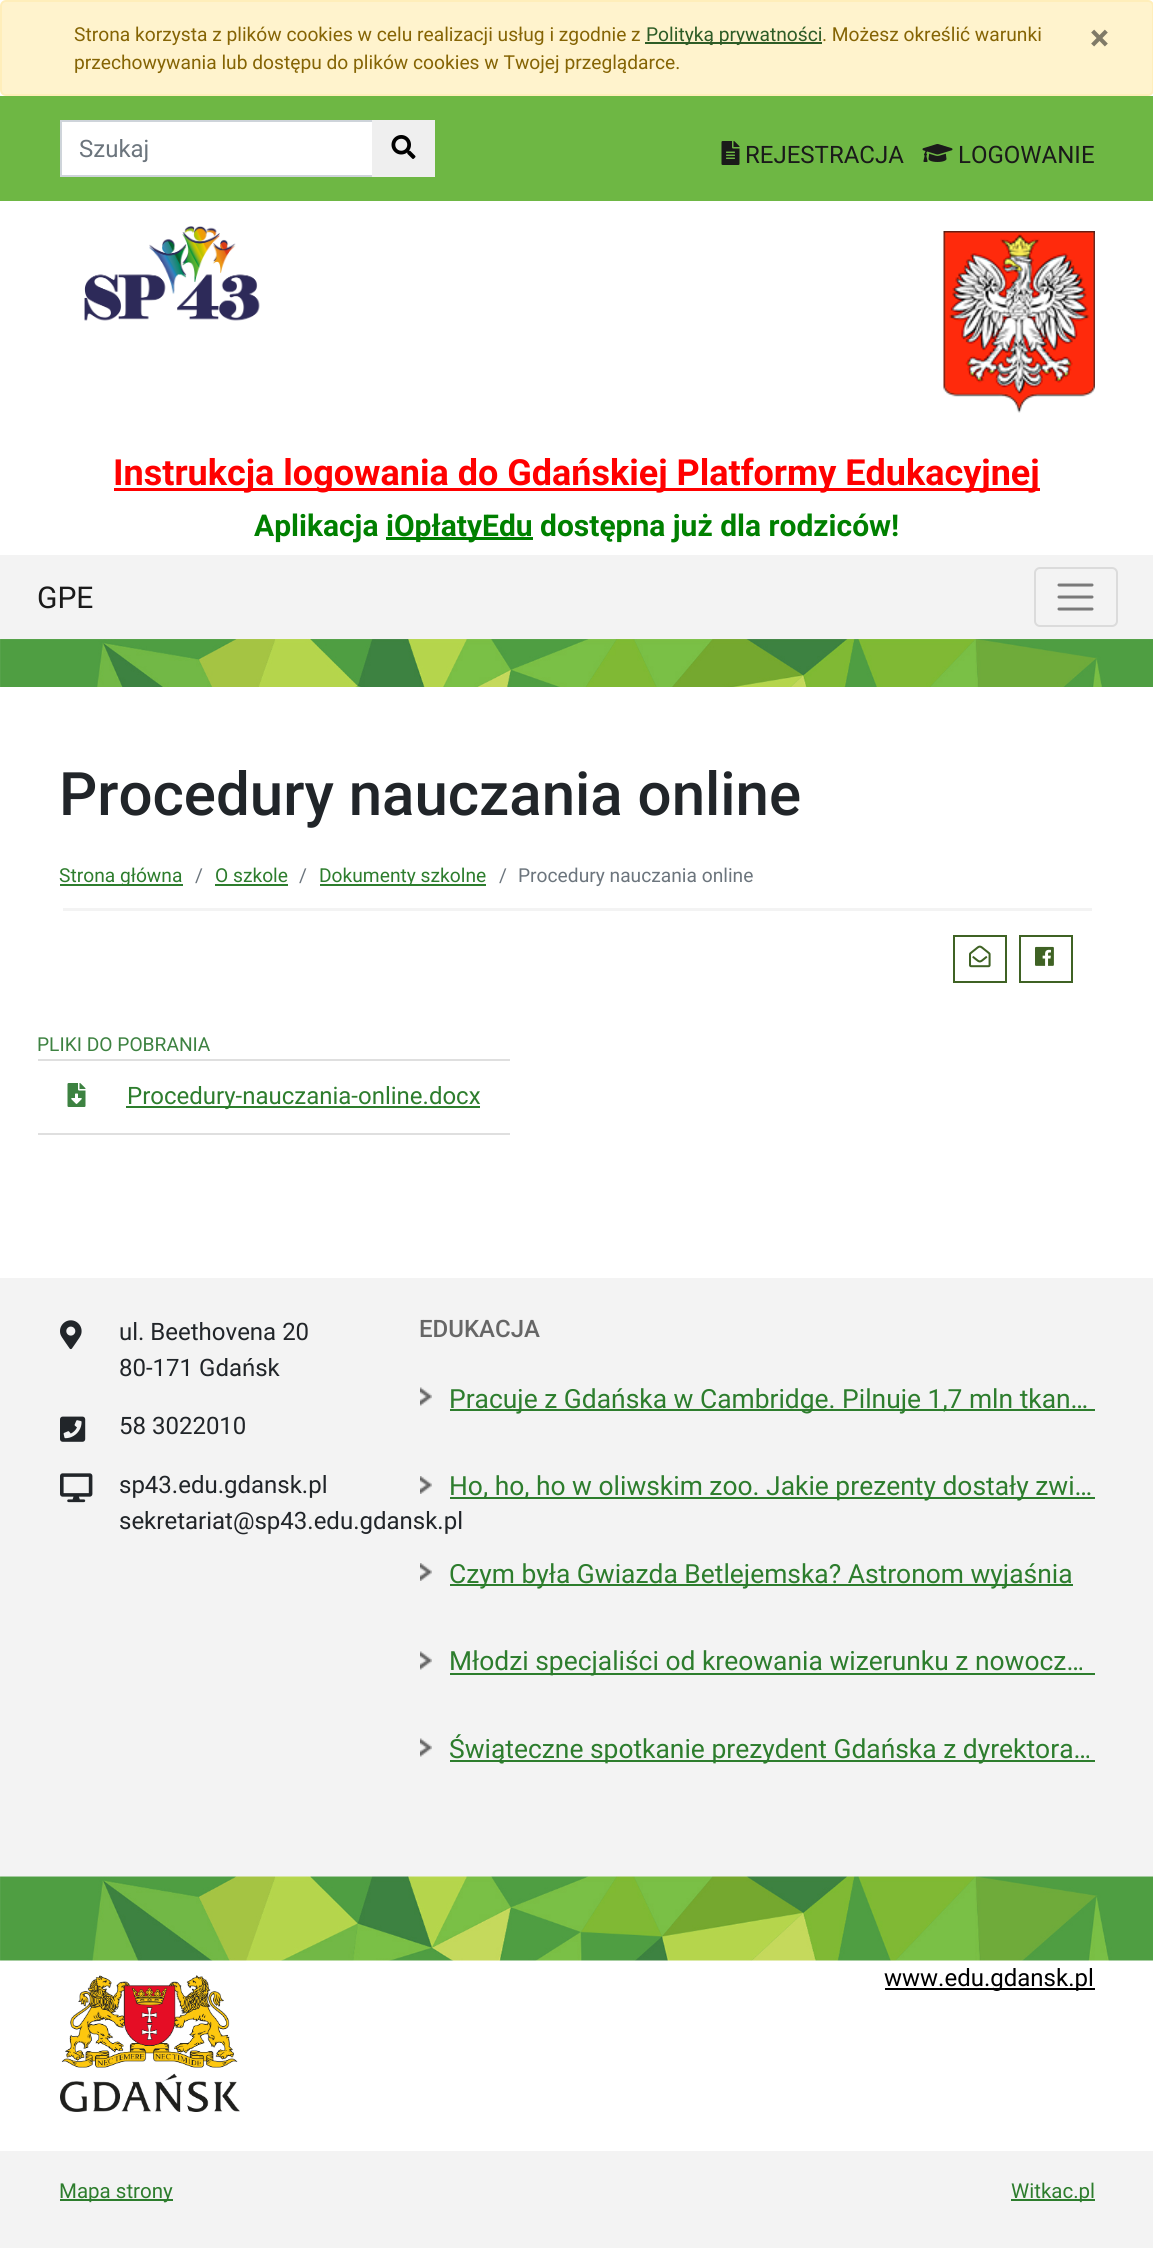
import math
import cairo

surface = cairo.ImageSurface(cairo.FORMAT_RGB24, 1153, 2248)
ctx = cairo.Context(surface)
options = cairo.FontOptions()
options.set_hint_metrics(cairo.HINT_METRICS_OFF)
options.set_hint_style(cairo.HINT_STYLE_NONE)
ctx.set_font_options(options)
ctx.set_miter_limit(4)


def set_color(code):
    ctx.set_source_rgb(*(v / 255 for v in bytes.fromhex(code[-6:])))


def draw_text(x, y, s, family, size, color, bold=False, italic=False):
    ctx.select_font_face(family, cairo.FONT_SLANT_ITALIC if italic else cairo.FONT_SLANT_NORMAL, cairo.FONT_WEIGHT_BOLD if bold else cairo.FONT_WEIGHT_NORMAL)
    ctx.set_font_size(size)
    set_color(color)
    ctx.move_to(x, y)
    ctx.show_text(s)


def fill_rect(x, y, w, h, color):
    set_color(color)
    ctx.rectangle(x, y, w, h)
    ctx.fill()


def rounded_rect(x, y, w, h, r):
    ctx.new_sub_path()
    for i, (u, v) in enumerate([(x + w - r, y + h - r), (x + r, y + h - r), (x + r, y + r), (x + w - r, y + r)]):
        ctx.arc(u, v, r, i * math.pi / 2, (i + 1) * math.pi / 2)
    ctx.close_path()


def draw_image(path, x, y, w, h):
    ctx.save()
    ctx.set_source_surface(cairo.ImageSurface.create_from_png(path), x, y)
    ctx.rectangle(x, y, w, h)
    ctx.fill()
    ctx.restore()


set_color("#ffffff")
ctx.paint()
set_color("#fff3cd")
rounded_rect(1, 1, 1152, 94, 5)
ctx.fill_preserve()
set_color("#ffeeba")
ctx.stroke()
draw_text(74, 41, "Strona korzysta z plików cookies w celu realizacji usług i zgodnie z", "Roboto", 19.2, "#856404")
fill_rect(645, 42, 177, 2, "#2e5c26")
draw_text(646, 41, "Polityką prywatności", "Roboto", 19.2, "#2e5c26")
draw_text(822, 41, ". Możesz określić warunki", "Roboto", 19.2, "#856404")
draw_text(1090, 50, "×", "Roboto", 36, "#807a67", bold=True)
draw_text(74, 69, "przechowywania lub dostępu do plików cookies w Twojej przeglądarce.", "Roboto", 19.2, "#856404")
fill_rect(0, 96, 1153, 105, "#6eb744")
set_color("#ffffff")
ctx.rectangle(61, 121, 312, 55)
ctx.fill_preserve()
set_color("#ced4da")
ctx.stroke()
draw_text(79, 157, "Szukaj", "Roboto", 24, "#6c757d")
fill_rect(372, 120, 63, 57, "#efefef")
draw_image("assets/img1.png", 391, 135, 25, 24)
draw_image("assets/img2.png", 721, 141, 19, 24)
draw_text(745, 163, "REJESTRACJA", "Roboto", 24, "#1a1a1a")
draw_image("assets/img3.png", 922, 144, 31, 18)
draw_text(958, 163, "LOGOWANIE", "Roboto", 24, "#1a1a1a")
draw_image("assets/img4.png", 84, 226, 176, 95)
draw_image("assets/img5.png", 943, 231, 152, 182)
fill_rect(114, 488, 926, 3, "#ff0000")
draw_text(113, 485, "Instrukcja logowania do Gdańskiej Platformy Edukacyjnej", "Roboto", 36, "#ff0000", bold=True)
draw_text(254, 536, "Aplikacja", "Roboto", 30, "#008000", bold=True)
fill_rect(386, 537, 147, 3, "#008000")
draw_text(386, 536, "iOpłatyEdu dostępna już dla rodziców!", "Roboto", 30, "#008000", bold=True)
fill_rect(0, 555, 1153, 84, "#f3f3f3")
draw_text(37, 608, "GPE", "Roboto", 30, "#1a1a1a")
rounded_rect(1035, 568, 82, 58, 5)
set_color("#dbdbdb")
ctx.stroke()
ctx.new_path()
ctx.move_to(1059, 585)
ctx.line_to(1092, 585)
ctx.move_to(1059, 597)
ctx.line_to(1092, 597)
ctx.move_to(1059, 609)
ctx.line_to(1092, 609)
set_color("#7a7a7a")
ctx.set_line_width(3)
ctx.set_line_cap(cairo.LINE_CAP_ROUND)
ctx.stroke()
draw_image("assets/img6.png", 0, 639, 1153, 48)
draw_text(59, 815, "Procedury nauczania online", "Roboto Medium", 60, "#212529")
fill_rect(63, 908, 1029, 3, "#f3f3f3")
fill_rect(60, 884, 123, 2, "#2d7d2d")
draw_text(59, 882, "Strona główna", "Roboto", 19.2, "#2d7d2d")
draw_text(195, 882, "/", "Roboto", 19.2, "#6c757d")
draw_text(215, 882, "O szkole", "Roboto", 19.2, "#2d7d2d")
fill_rect(215, 884, 73, 2, "#2d7d2d")
draw_text(299, 882, "/", "Roboto", 19.2, "#6c757d")
fill_rect(320, 884, 166, 2, "#2d7d2d")
draw_text(319, 882, "Dokumenty szkolne", "Roboto", 19.2, "#2d7d2d")
draw_text(499, 882, "/", "Roboto", 19.2, "#6c757d")
draw_text(518, 882, "Procedury nauczania online", "Roboto", 19.2, "#6c757d")
ctx.rectangle(954, 936, 52, 46)
set_color("#3f6224")
ctx.set_line_width(2)
ctx.set_line_cap(cairo.LINE_CAP_BUTT)
ctx.stroke()
draw_image("assets/img7.png", 969, 945, 22, 23)
ctx.rectangle(1020, 936, 52, 46)
ctx.stroke()
draw_image("assets/img8.png", 1035, 946, 19, 20)
draw_text(37, 1051, "PLIKI DO POBRANIA", "Roboto", 19.2, "#3d8241")
fill_rect(38, 1059, 472, 2, "#dfdfdf")
fill_rect(38, 1133, 472, 2, "#dfdfdf")
draw_image("assets/img9.png", 67, 1083, 19, 24)
fill_rect(126, 1106, 354, 2, "#2d7d2d")
draw_text(127, 1104, "Procedury-nauczania-online.docx", "Roboto", 24, "#2d7d2d")
fill_rect(0, 1278, 1153, 599, "#f3f3f3")
draw_image("assets/img10.png", 60, 1320, 22, 30)
draw_text(119, 1340, "ul. Beethovena 20", "Roboto", 24, "#212529")
draw_text(119, 1376, "80-171 Gdańsk", "Roboto", 24, "#212529")
draw_image("assets/img11.png", 60, 1416, 26, 26)
draw_text(119, 1434, "58 3022010", "Roboto", 24, "#212529")
draw_image("assets/img12.png", 60, 1473, 33, 30)
draw_text(119, 1493, "sp43.edu.gdansk.pl", "Roboto", 24, "#212529")
draw_text(119, 1529, "sekretariat@sp43.edu.gdansk.pl", "Roboto", 24, "#212529")
draw_text(419, 1337, "EDUKACJA", "Roboto Medium", 24, "#666666")
draw_image("assets/img13.png", 420, 1387, 12, 19)
fill_rect(450, 1409, 645, 2, "#2d7d2d")
draw_text(449, 1408, "Pracuje z Gdańska w Cambridge. Pilnuje 1,7 mln tkan…", "Roboto", 26.4, "#2d7d2d")
draw_image("assets/img14.png", 420, 1476, 12, 18)
fill_rect(450, 1497, 645, 2, "#2d7d2d")
draw_text(449, 1495, "Ho, ho, ho w oliwskim zoo. Jakie prezenty dostały zwi…", "Roboto", 26.4, "#2d7d2d")
draw_image("assets/img14.png", 420, 1563, 12, 18)
fill_rect(450, 1584, 623, 2, "#2d7d2d")
draw_text(449, 1583, "Czym była Gwiazda Betlejemska? Astronom wyjaśnia", "Roboto", 26.4, "#2d7d2d")
draw_image("assets/img13.png", 420, 1651, 12, 19)
fill_rect(450, 1673, 645, 2, "#2d7d2d")
draw_text(449, 1670, "Młodzi specjaliści od kreowania wizerunku z nowocz…", "Roboto", 26.4, "#2d7d2d")
draw_image("assets/img13.png", 420, 1738, 12, 19)
fill_rect(450, 1760, 645, 2, "#2d7d2d")
draw_text(449, 1758, "Świąteczne spotkanie prezydent Gdańska z dyrektora…", "Roboto", 26.4, "#2d7d2d")
draw_image("assets/img15.png", 0, 1876, 1153, 85)
draw_image("assets/img16.png", 60, 1975, 180, 137)
fill_rect(885, 1988, 210, 2, "#000000")
draw_text(884, 1986, "www.edu.gdansk.pl", "Roboto", 24, "#000000")
fill_rect(0, 2151, 1153, 97, "#f3f3f3")
fill_rect(60, 2199, 113, 2, "#2d7d2d")
draw_text(59, 2198, "Mapa strony", "Roboto", 20.5, "#2d7d2d")
fill_rect(1011, 2199, 84, 2, "#2d7d2d")
draw_text(1011, 2198, "Witkac.pl", "Roboto", 20.5, "#2d7d2d")
surface.write_to_png("output.png")
